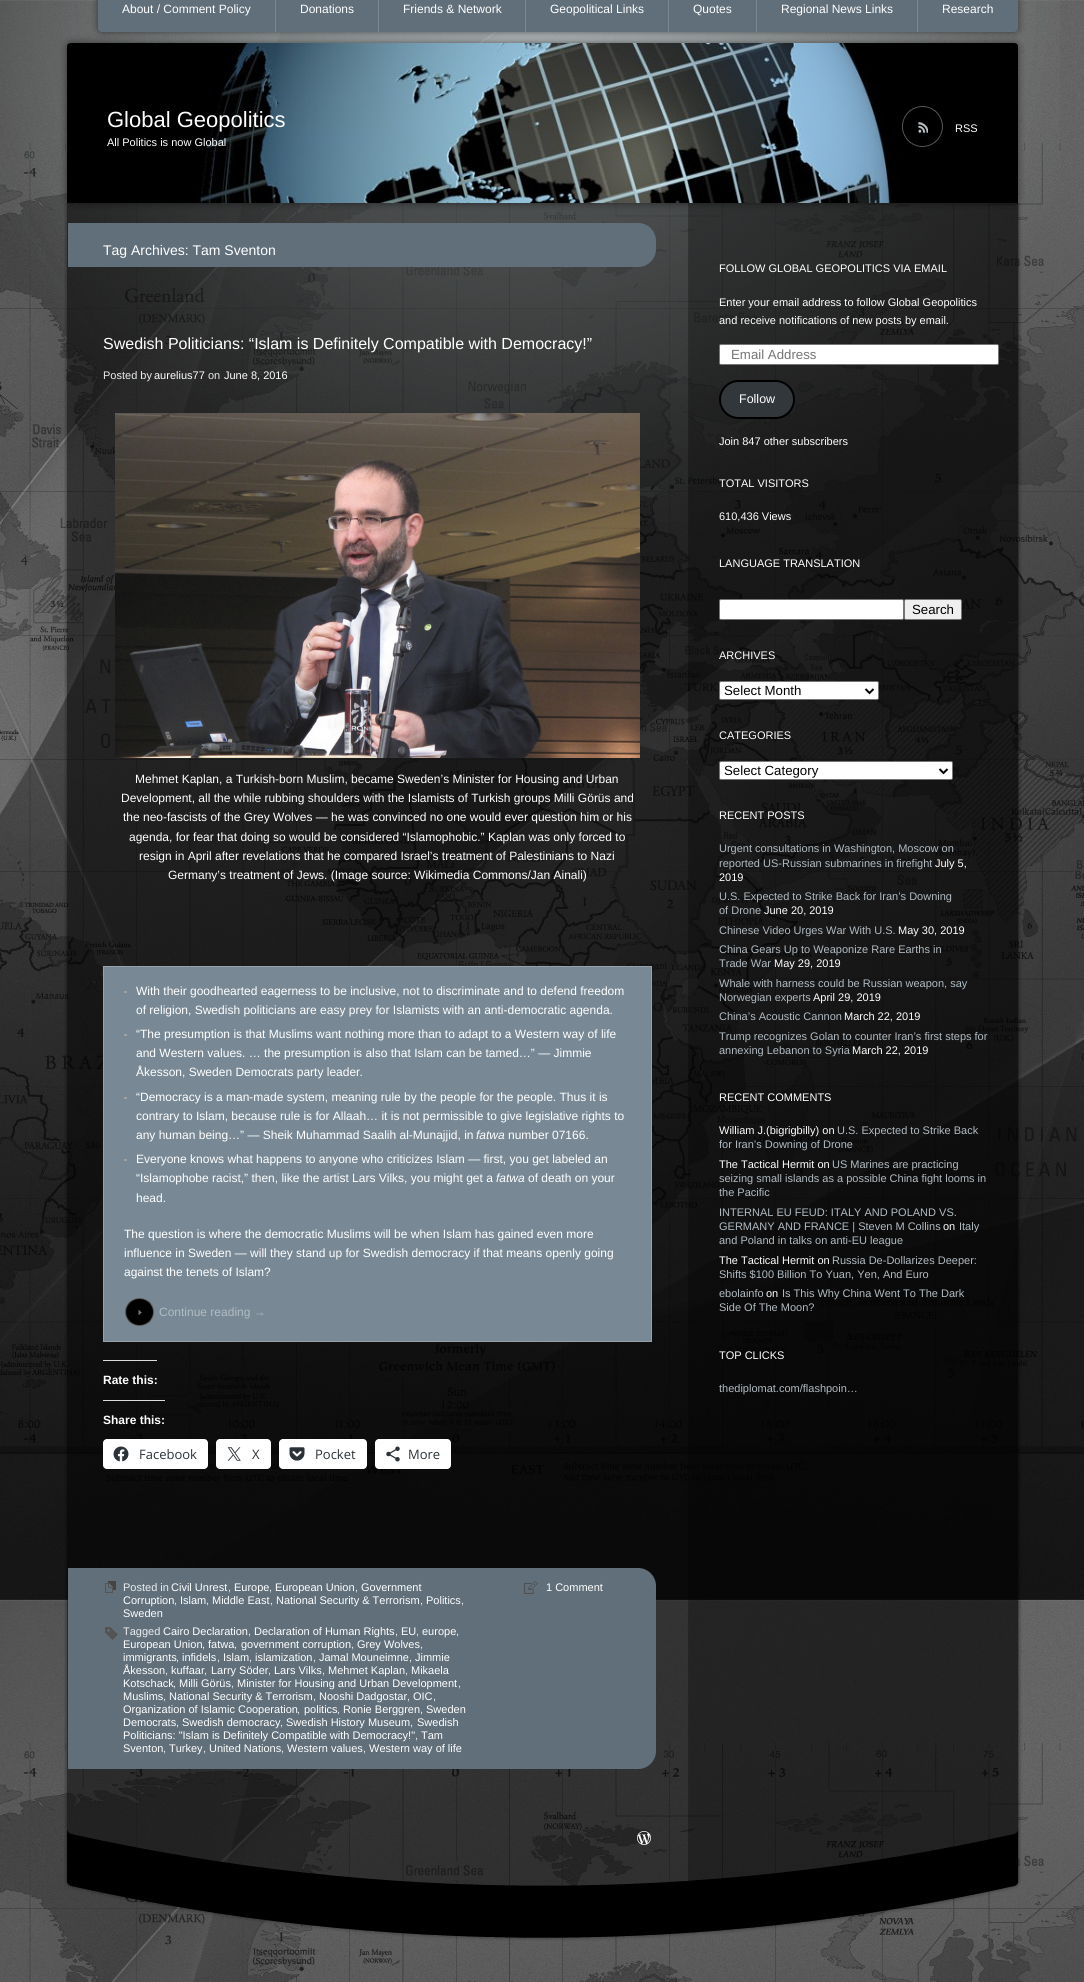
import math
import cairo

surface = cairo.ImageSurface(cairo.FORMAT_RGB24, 1084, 1982)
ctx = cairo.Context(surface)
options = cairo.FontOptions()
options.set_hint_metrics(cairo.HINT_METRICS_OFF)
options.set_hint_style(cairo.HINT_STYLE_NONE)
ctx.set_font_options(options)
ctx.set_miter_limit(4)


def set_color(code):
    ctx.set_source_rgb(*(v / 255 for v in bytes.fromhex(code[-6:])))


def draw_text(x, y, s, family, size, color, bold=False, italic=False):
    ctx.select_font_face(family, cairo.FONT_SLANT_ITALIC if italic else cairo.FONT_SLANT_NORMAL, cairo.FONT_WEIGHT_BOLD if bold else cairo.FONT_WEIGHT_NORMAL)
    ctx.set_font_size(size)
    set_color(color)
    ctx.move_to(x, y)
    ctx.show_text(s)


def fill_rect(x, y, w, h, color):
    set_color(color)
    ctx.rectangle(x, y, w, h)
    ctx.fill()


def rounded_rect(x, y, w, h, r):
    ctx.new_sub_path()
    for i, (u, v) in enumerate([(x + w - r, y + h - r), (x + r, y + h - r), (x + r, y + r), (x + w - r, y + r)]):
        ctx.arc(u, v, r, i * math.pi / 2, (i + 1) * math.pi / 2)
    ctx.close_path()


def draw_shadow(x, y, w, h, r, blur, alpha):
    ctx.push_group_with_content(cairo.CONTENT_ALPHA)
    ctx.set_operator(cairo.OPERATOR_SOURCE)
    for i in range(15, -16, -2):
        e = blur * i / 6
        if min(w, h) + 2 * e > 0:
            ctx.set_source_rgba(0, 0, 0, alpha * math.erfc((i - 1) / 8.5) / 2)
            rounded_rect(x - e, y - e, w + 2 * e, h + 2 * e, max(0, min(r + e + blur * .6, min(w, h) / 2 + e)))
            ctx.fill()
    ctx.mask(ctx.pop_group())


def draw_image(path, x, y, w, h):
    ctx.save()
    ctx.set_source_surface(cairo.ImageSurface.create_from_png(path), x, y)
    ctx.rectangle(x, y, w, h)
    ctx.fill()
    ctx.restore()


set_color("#ffffff")
ctx.paint()
draw_image("assets/img1.png", 0, 0, 1084, 1982)
draw_image("assets/img2.png", 0, 0, 1060, 521)
set_color("#000000")
draw_shadow(98, -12, 920, 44, 4, 4, 0.5)
set_color("#606f7a")
ctx.new_path()
ctx.move_to(98, -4)
ctx.line_to(1018, -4)
ctx.line_to(1018, 28)
ctx.curve_to(1018, 30, 1016, 32, 1014, 32)
ctx.line_to(102, 32)
ctx.curve_to(100, 32, 98, 30, 98, 28)
ctx.close_path()
ctx.fill()
draw_text(122, 13, "About / Comment Policy", "Liberation Sans", 12, "#ffffff")
fill_rect(275, 0, 1, 32, "#788995")
draw_text(300, 13, "Donations", "Liberation Sans", 12, "#ffffff")
fill_rect(378, 0, 1, 32, "#788995")
draw_text(403, 13, "Friends & Network", "Liberation Sans", 12, "#ffffff")
fill_rect(525, 0, 1, 32, "#788995")
draw_text(550, 13, "Geopolitical Links", "Liberation Sans", 12, "#ffffff")
fill_rect(668, 0, 1, 32, "#788995")
draw_text(693, 13, "Quotes", "Liberation Sans", 12, "#ffffff")
fill_rect(756, 0, 1, 32, "#788995")
draw_text(781, 13, "Regional News Links", "Liberation Sans", 12, "#ffffff")
fill_rect(917, 0, 1, 32, "#788995")
draw_text(942, 13, "Research", "Liberation Sans", 12, "#ffffff")
draw_image("assets/img5.png", 64, 203, 958, 1626)
set_color("#000000")
draw_shadow(67, 43, 951, 160, 4, 4, 0.5)
draw_image("assets/img3.png", 67, 43, 951, 160)
draw_text(107, 127, "Global Geopolitics", "Liberation Sans", 22, "#ffffff")
draw_text(107, 146, "All Politics is now Global", "Liberation Sans", 11, "#ffffff")
draw_image("assets/img4.png", 902, 106, 41, 41)
draw_text(955, 132, "RSS", "Liberation Sans", 11, "#ffffff")
set_color("#606f7a")
ctx.new_path()
ctx.move_to(68, 223)
ctx.line_to(638, 223)
ctx.curve_to(648, 223, 656, 231, 656, 241)
ctx.line_to(656, 249)
ctx.curve_to(656, 259, 648, 267, 638, 267)
ctx.line_to(68, 267)
ctx.close_path()
ctx.fill()
draw_text(103, 255, "Tag Archives: Tam Sventon", "Liberation Sans", 14, "#ffffff")
draw_text(103, 349, "Swedish Politicians: “Islam is Definitely Compatible with Democracy!”", "Liberation Sans", 16, "#ffffff")
draw_text(103, 379, "Posted by", "Liberation Sans", 11, "#ebedef")
draw_text(154, 379, "aurelius77", "Liberation Sans", 11, "#ffffff")
draw_text(208, 379, "on", "Liberation Sans", 11, "#ebedef")
draw_text(224, 379, "June 8, 2016", "Liberation Sans", 11, "#ffffff")
draw_image("assets/img6.png", 115, 413, 525, 345)
draw_text(135, 783, "Mehmet Kaplan, a Turkish-born Muslim, became Sweden’s Minister for Housing and Urban", "Liberation Sans", 12, "#ffffff")
draw_text(121, 802, "Development, all the while rubbing shoulders with the Islamists of Turkish groups Milli Görüs and", "Liberation Sans", 12, "#ffffff")
draw_text(123, 821, "the neo-fascists of the Grey Wolves — he was convinced no one would ever question him or his", "Liberation Sans", 12, "#ffffff")
draw_text(129, 841, "agenda, for fear that doing so would be considered “Islamophobic.” Kaplan was only forced to", "Liberation Sans", 12, "#ffffff")
draw_text(139, 860, "resign in April after revelations that he compared Israel’s treatment of Palestinians to Nazi", "Liberation Sans", 12, "#ffffff")
draw_text(168, 879, "Germany’s treatment of Jews. (Image source: Wikimedia Commons/Jan Ainali)", "Liberation Sans", 12, "#ffffff")
set_color("#788995")
ctx.rectangle(103.5, 966.5, 548, 375)
ctx.fill_preserve()
set_color("#95a2ab")
ctx.set_line_width(1)
ctx.stroke()
fill_rect(124, 991, 3, 2, "#a2a2a2")
draw_text(136, 995, "With their goodhearted eagerness to be inclusive, not to discriminate and to defend freedom", "Liberation Sans", 12, "#ffffff")
draw_text(136, 1014, "of religion, Swedish politicians are easy prey for Islamists with an anti-democratic agenda.", "Liberation Sans", 12, "#ffffff")
fill_rect(124, 1034, 3, 2, "#a2a2a2")
draw_text(136, 1038, "“The presumption is that Muslims want nothing more than to adapt to a Western way of life", "Liberation Sans", 12, "#ffffff")
draw_text(136, 1057, "and Western values. … the presumption is also that Islam can be tamed…” — Jimmie", "Liberation Sans", 12, "#ffffff")
draw_text(136, 1076, "Åkesson, Sweden Democrats party leader", "Liberation Sans", 12, "#ffffff")
draw_text(360, 1076, ".", "Liberation Sans", 12, "#ffffff", italic=True)
fill_rect(124, 1097, 3, 2, "#a2a2a2")
draw_text(136, 1101, "“Democracy is a man-made system, meaning rule by the people for the people. Thus it is", "Liberation Sans", 12, "#ffffff")
draw_text(136, 1120, "contrary to Islam, because rule is for Allaah… it is not permissible to give legislative rights to", "Liberation Sans", 12, "#ffffff")
draw_text(136, 1139, "any human being…” — Sheik Muhammad Saalih al-Munajjid, in", "Liberation Sans", 12, "#ffffff")
draw_text(476, 1139, "fatwa", "Liberation Sans", 12, "#ffffff", italic=True)
draw_text(508, 1139, "number 07166.", "Liberation Sans", 12, "#ffffff")
fill_rect(124, 1159, 3, 2, "#a2a2a2")
draw_text(136, 1163, "Everyone knows what happens to anyone who criticizes Islam — first, you get labeled an", "Liberation Sans", 12, "#ffffff")
draw_text(136, 1182, "“Islamophobe racist,” then, like the artist Lars Vilks, you might get a", "Liberation Sans", 12, "#ffffff")
draw_text(496, 1182, "fatwa", "Liberation Sans", 12, "#ffffff", italic=True)
draw_text(528, 1182, "of death on your", "Liberation Sans", 12, "#ffffff")
draw_text(136, 1202, "head.", "Liberation Sans", 12, "#ffffff")
draw_text(124, 1238, "The question is where the democratic Muslims will be when Islam has gained even more", "Liberation Sans", 12, "#ffffff")
draw_text(124, 1257, "influence in Sweden — will they stand up for Swedish democracy if that means openly going", "Liberation Sans", 12, "#ffffff")
draw_text(124, 1276, "against the tenets of Islam?", "Liberation Sans", 12, "#ffffff")
draw_image("assets/img7.png", 125, 1298, 29, 28)
draw_text(159, 1316, "Continue reading →", "Liberation Sans", 12, "#b1bbc2")
fill_rect(103, 1360, 54, 1, "#dcdcde")
draw_text(103, 1384, "Rate this:", "Liberation Sans", 12, "#ffffff", bold=True)
fill_rect(103, 1400, 62, 1, "#dcdcde")
draw_text(103, 1424, "Share this:", "Liberation Sans", 12, "#ffffff", bold=True)
rounded_rect(103, 1439, 105, 30, 4)
ctx.fill()
draw_image("assets/img8.png", 113, 1446, 16, 16)
draw_text(139, 1459, "Facebook", "Open Sans", 13, "#2c3338")
set_color("#ffffff")
rounded_rect(216, 1439, 55, 30, 4)
ctx.fill()
draw_image("assets/img9.png", 227, 1447, 14, 14)
draw_text(252, 1459, "X", "Open Sans", 13, "#2c3338")
set_color("#ffffff")
rounded_rect(279, 1439, 88, 30, 4)
ctx.fill()
draw_image("assets/img10.png", 289, 1447, 16, 14)
draw_text(315, 1459, "Pocket", "Open Sans", 13, "#2c3338")
set_color("#ffffff")
rounded_rect(375, 1439, 76, 30, 4)
ctx.fill()
draw_image("assets/img11.png", 386, 1446, 14, 16)
draw_text(408, 1459, "More", "Open Sans", 13, "#2c3338")
set_color("#606f7a")
ctx.new_path()
ctx.move_to(68, 1568)
ctx.line_to(638, 1568)
ctx.curve_to(648, 1568, 656, 1576, 656, 1586)
ctx.line_to(656, 1751)
ctx.curve_to(656, 1761, 648, 1769, 638, 1769)
ctx.line_to(68, 1769)
ctx.close_path()
ctx.fill()
draw_image("assets/img12.png", 105, 1581, 11, 12)
draw_text(123, 1591, "Posted in", "Liberation Sans", 11, "#ebedef")
draw_text(171, 1591, "Civil Unrest", "Liberation Sans", 11, "#ffffff")
draw_text(228, 1591, ",", "Liberation Sans", 11, "#ebedef")
draw_text(234, 1591, "Europe", "Liberation Sans", 11, "#ffffff")
draw_text(269, 1591, ",", "Liberation Sans", 11, "#ebedef")
draw_text(275, 1591, "European Union", "Liberation Sans", 11, "#ffffff")
draw_text(355, 1591, ",", "Liberation Sans", 11, "#ebedef")
draw_text(361, 1591, "Government", "Liberation Sans", 11, "#ffffff")
draw_text(123, 1604, "Corruption", "Liberation Sans", 11, "#ffffff")
draw_text(174, 1604, ",", "Liberation Sans", 11, "#ebedef")
draw_text(180, 1604, "Islam", "Liberation Sans", 11, "#ffffff")
draw_text(206, 1604, ",", "Liberation Sans", 11, "#ebedef")
draw_text(212, 1604, "Middle East", "Liberation Sans", 11, "#ffffff")
draw_text(270, 1604, ",", "Liberation Sans", 11, "#ebedef")
draw_text(276, 1604, "National Security & Terrorism", "Liberation Sans", 11, "#ffffff")
draw_text(420, 1604, ",", "Liberation Sans", 11, "#ebedef")
draw_text(426, 1604, "Politics", "Liberation Sans", 11, "#ffffff")
draw_text(461, 1604, ",", "Liberation Sans", 11, "#ebedef")
draw_text(123, 1617, "Sweden", "Liberation Sans", 11, "#ffffff")
draw_image("assets/img13.png", 524, 1581, 14, 13)
draw_text(546, 1591, "1 Comment", "Liberation Sans", 11, "#ffffff")
draw_image("assets/img14.png", 105, 1627, 13, 13)
draw_text(123, 1635, "Tagged", "Liberation Sans", 11, "#ebedef")
draw_text(163, 1635, "Cairo Declaration", "Liberation Sans", 11, "#ffffff")
draw_text(248, 1635, ",", "Liberation Sans", 11, "#ebedef")
draw_text(254, 1635, "Declaration of Human Rights", "Liberation Sans", 11, "#ffffff")
draw_text(395, 1635, ",", "Liberation Sans", 11, "#ebedef")
draw_text(401, 1635, "EU", "Liberation Sans", 11, "#ffffff")
draw_text(416, 1635, ",", "Liberation Sans", 11, "#ebedef")
draw_text(422, 1635, "europe", "Liberation Sans", 11, "#ffffff")
draw_text(456, 1635, ",", "Liberation Sans", 11, "#ebedef")
draw_text(123, 1648, "European Union", "Liberation Sans", 11, "#ffffff")
draw_text(202, 1648, ",", "Liberation Sans", 11, "#ebedef")
draw_text(208, 1648, "fatwa", "Liberation Sans", 11, "#ffffff")
draw_text(234, 1648, ",", "Liberation Sans", 11, "#ebedef")
draw_text(241, 1648, "government corruption", "Liberation Sans", 11, "#ffffff")
draw_text(351, 1648, ",", "Liberation Sans", 11, "#ebedef")
draw_text(357, 1648, "Grey Wolves", "Liberation Sans", 11, "#ffffff")
draw_text(420, 1648, ",", "Liberation Sans", 11, "#ebedef")
draw_text(123, 1661, "immigrants", "Liberation Sans", 11, "#ffffff")
draw_text(176, 1661, ",", "Liberation Sans", 11, "#ebedef")
draw_text(182, 1661, "infidels", "Liberation Sans", 11, "#ffffff")
draw_text(217, 1661, ",", "Liberation Sans", 11, "#ebedef")
draw_text(223, 1661, "Islam", "Liberation Sans", 11, "#ffffff")
draw_text(249, 1661, ",", "Liberation Sans", 11, "#ebedef")
draw_text(255, 1661, "islamization", "Liberation Sans", 11, "#ffffff")
draw_text(313, 1661, ",", "Liberation Sans", 11, "#ebedef")
draw_text(319, 1661, "Jamal Mouneimne", "Liberation Sans", 11, "#ffffff")
draw_text(409, 1661, ",", "Liberation Sans", 11, "#ebedef")
draw_text(415, 1661, "Jimmie", "Liberation Sans", 11, "#ffffff")
draw_text(123, 1674, "Åkesson", "Liberation Sans", 11, "#ffffff")
draw_text(165, 1674, ",", "Liberation Sans", 11, "#ebedef")
draw_text(171, 1674, "kuffaar", "Liberation Sans", 11, "#ffffff")
draw_text(204, 1674, ",", "Liberation Sans", 11, "#ebedef")
draw_text(211, 1674, "Larry Söder", "Liberation Sans", 11, "#ffffff")
draw_text(268, 1674, ",", "Liberation Sans", 11, "#ebedef")
draw_text(274, 1674, "Lars Vilks", "Liberation Sans", 11, "#ffffff")
draw_text(322, 1674, ",", "Liberation Sans", 11, "#ebedef")
draw_text(328, 1674, "Mehmet Kaplan", "Liberation Sans", 11, "#ffffff")
draw_text(405, 1674, ",", "Liberation Sans", 11, "#ebedef")
draw_text(411, 1674, "Mikaela", "Liberation Sans", 11, "#ffffff")
draw_text(123, 1687, "Kotschack", "Liberation Sans", 11, "#ffffff")
draw_text(173, 1687, ",", "Liberation Sans", 11, "#ebedef")
draw_text(179, 1687, "Milli Görüs", "Liberation Sans", 11, "#ffffff")
draw_text(231, 1687, ",", "Liberation Sans", 11, "#ebedef")
draw_text(237, 1687, "Minister for Housing and Urban Development", "Liberation Sans", 11, "#ffffff")
draw_text(458, 1687, ",", "Liberation Sans", 11, "#ebedef")
draw_text(123, 1700, "Muslims", "Liberation Sans", 11, "#ffffff")
draw_text(163, 1700, ",", "Liberation Sans", 11, "#ebedef")
draw_text(169, 1700, "National Security & Terrorism", "Liberation Sans", 11, "#ffffff")
draw_text(313, 1700, ",", "Liberation Sans", 11, "#ebedef")
draw_text(319, 1700, "Nooshi Dadgostar", "Liberation Sans", 11, "#ffffff")
draw_text(407, 1700, ",", "Liberation Sans", 11, "#ebedef")
draw_text(413, 1700, "OIC", "Liberation Sans", 11, "#ffffff")
draw_text(433, 1700, ",", "Liberation Sans", 11, "#ebedef")
draw_text(123, 1713, "Organization of Islamic Cooperation", "Liberation Sans", 11, "#ffffff")
draw_text(297, 1713, ",", "Liberation Sans", 11, "#ebedef")
draw_text(304, 1713, "politics", "Liberation Sans", 11, "#ffffff")
draw_text(337, 1713, ",", "Liberation Sans", 11, "#ebedef")
draw_text(343, 1713, "Ronie Berggren", "Liberation Sans", 11, "#ffffff")
draw_text(420, 1713, ",", "Liberation Sans", 11, "#ebedef")
draw_text(426, 1713, "Sweden", "Liberation Sans", 11, "#ffffff")
draw_text(123, 1726, "Democrats", "Liberation Sans", 11, "#ffffff")
draw_text(176, 1726, ",", "Liberation Sans", 11, "#ebedef")
draw_text(182, 1726, "Swedish democracy", "Liberation Sans", 11, "#ffffff")
draw_text(280, 1726, ",", "Liberation Sans", 11, "#ebedef")
draw_text(286, 1726, "Swedish History Museum", "Liberation Sans", 11, "#ffffff")
draw_text(410, 1726, ",", "Liberation Sans", 11, "#ebedef")
draw_text(417, 1726, "Swedish", "Liberation Sans", 11, "#ffffff")
draw_text(123, 1739, "Politicians: \"Islam is Definitely Compatible with Democracy!\"", "Liberation Sans", 11, "#ffffff")
draw_text(415, 1739, ",", "Liberation Sans", 11, "#ebedef")
draw_text(421, 1739, "Tam", "Liberation Sans", 11, "#ffffff")
draw_text(123, 1752, "Sventon", "Liberation Sans", 11, "#ffffff")
draw_text(163, 1752, ",", "Liberation Sans", 11, "#ebedef")
draw_text(169, 1752, "Turkey", "Liberation Sans", 11, "#ffffff")
draw_text(203, 1752, ",", "Liberation Sans", 11, "#ebedef")
draw_text(209, 1752, "United Nations", "Liberation Sans", 11, "#ffffff")
draw_text(281, 1752, ",", "Liberation Sans", 11, "#ebedef")
draw_text(287, 1752, "Western values", "Liberation Sans", 11, "#ffffff")
draw_text(363, 1752, ",", "Liberation Sans", 11, "#ebedef")
draw_text(369, 1752, "Western way of life", "Liberation Sans", 11, "#ffffff")
draw_text(719, 272, "FOLLOW GLOBAL GEOPOLITICS VIA EMAIL", "Liberation Sans", 11, "#ffffff")
draw_text(719, 306, "Enter your email address to follow Global Geopolitics", "Liberation Sans", 11, "#ffffff")
draw_text(719, 324, "and receive notifications of new posts by email.", "Liberation Sans", 11, "#ffffff")
rounded_rect(719.5, 344.5, 279, 20, 1.5)
ctx.fill_preserve()
set_color("#767676")
ctx.stroke()
draw_text(731, 359, "Email Address", "Liberation Sans", 13.25, "#757575")
set_color("#32373c")
rounded_rect(720, 381, 74, 37, 18.5)
ctx.fill_preserve()
set_color("#000000")
ctx.set_line_width(2)
ctx.stroke()
draw_text(739, 403, "Follow", "Liberation Sans", 12.5, "#ffffff")
draw_text(719, 445, "Join 847 other subscribers", "Liberation Sans", 11, "#ffffff")
draw_text(719, 487, "TOTAL VISITORS", "Liberation Sans", 11, "#ffffff")
draw_text(719, 520, "610,436 Views", "Liberation Sans", 11, "#ffffff")
draw_text(719, 567, "LANGUAGE TRANSLATION", "Liberation Sans", 11, "#ffffff")
rounded_rect(719.5, 599.5, 184, 20, 1.5)
ctx.fill_preserve()
set_color("#767676")
ctx.set_line_width(1)
ctx.stroke()
set_color("#efefef")
rounded_rect(904.5, 599.5, 57, 20, 1.5)
ctx.fill_preserve()
set_color("#767676")
ctx.stroke()
draw_text(912, 614, "Search", "Liberation Sans", 13.25, "#000000")
draw_text(719, 659, "ARCHIVES", "Liberation Sans", 11, "#ffffff")
rounded_rect(719.5, 681.5, 159, 18, 1.5)
ctx.fill_preserve()
set_color("#767676")
ctx.stroke()
ctx.new_path()
ctx.move_to(865.5, 689)
ctx.line_to(869.5, 693)
ctx.line_to(873.5, 689)
set_color("#000000")
ctx.set_line_width(2)
ctx.stroke()
draw_text(724, 695, "Select Month", "Liberation Sans", 13.25, "#000000")
draw_text(719, 739, "CATEGORIES", "Liberation Sans", 11, "#ffffff")
rounded_rect(719.5, 761.5, 233, 18, 1.5)
ctx.fill_preserve()
set_color("#767676")
ctx.set_line_width(1)
ctx.stroke()
ctx.new_path()
ctx.move_to(939.5, 769)
ctx.line_to(943.5, 773)
ctx.line_to(947.5, 769)
set_color("#000000")
ctx.set_line_width(2)
ctx.stroke()
draw_text(724, 775, "Select Category", "Liberation Sans", 13.25, "#000000")
draw_text(719, 819, "RECENT POSTS", "Liberation Sans", 11, "#ffffff")
draw_text(719, 852, "Urgent consultations in Washington, Moscow on", "Liberation Sans", 11, "#b1bbc2")
draw_text(719, 867, "reported US-Russian submarines in firefight", "Liberation Sans", 11, "#b1bbc2")
draw_text(935, 867, "July 5,", "Liberation Sans", 11, "#ffffff")
draw_text(719, 881, "2019", "Liberation Sans", 11, "#ffffff")
draw_text(719, 900, "U.S. Expected to Strike Back for Iran’s Downing", "Liberation Sans", 11, "#b1bbc2")
draw_text(719, 914, "of Drone", "Liberation Sans", 11, "#b1bbc2")
draw_text(764, 914, "June 20, 2019", "Liberation Sans", 11, "#ffffff")
draw_text(719, 934, "Chinese Video Urges War With U.S.", "Liberation Sans", 11, "#b1bbc2")
draw_text(898, 934, "May 30, 2019", "Liberation Sans", 11, "#ffffff")
draw_text(719, 953, "China Gears Up to Weaponize Rare Earths in", "Liberation Sans", 11, "#b1bbc2")
draw_text(719, 967, "Trade War", "Liberation Sans", 11, "#b1bbc2")
draw_text(774, 967, "May 29, 2019", "Liberation Sans", 11, "#ffffff")
draw_text(719, 987, "Whale with harness could be Russian weapon, say", "Liberation Sans", 11, "#b1bbc2")
draw_text(719, 1001, "Norwegian experts", "Liberation Sans", 11, "#b1bbc2")
draw_text(813, 1001, "April 29, 2019", "Liberation Sans", 11, "#ffffff")
draw_text(719, 1020, "China’s Acoustic Cannon", "Liberation Sans", 11, "#b1bbc2")
draw_text(844, 1020, "March 22, 2019", "Liberation Sans", 11, "#ffffff")
draw_text(719, 1040, "Trump recognizes Golan to counter Iran’s first steps for", "Liberation Sans", 11, "#b1bbc2")
draw_text(719, 1054, "annexing Lebanon to Syria", "Liberation Sans", 11, "#b1bbc2")
draw_text(852, 1054, "March 22, 2019", "Liberation Sans", 11, "#ffffff")
draw_text(719, 1101, "RECENT COMMENTS", "Liberation Sans", 11, "#ffffff")
draw_text(719, 1134, "William J.(bigrigbilly) on", "Liberation Sans", 11, "#ffffff")
draw_text(837, 1134, "U.S. Expected to Strike Back", "Liberation Sans", 11, "#b1bbc2")
draw_text(719, 1148, "for Iran’s Downing of Drone", "Liberation Sans", 11, "#b1bbc2")
draw_text(719, 1168, "The Tactical Hermit on", "Liberation Sans", 11, "#ffffff")
draw_text(832, 1168, "US Marines are practicing", "Liberation Sans", 11, "#b1bbc2")
draw_text(719, 1182, "seizing small islands as a possible China fight looms in", "Liberation Sans", 11, "#b1bbc2")
draw_text(719, 1196, "the Pacific", "Liberation Sans", 11, "#b1bbc2")
draw_text(719, 1216, "INTERNAL EU FEUD: ITALY AND POLAND VS.", "Liberation Sans", 11, "#b1bbc2")
draw_text(719, 1230, "GERMANY AND FRANCE | Steven M Collins", "Liberation Sans", 11, "#b1bbc2")
draw_text(943, 1230, "on", "Liberation Sans", 11, "#ffffff")
draw_text(959, 1230, "Italy", "Liberation Sans", 11, "#b1bbc2")
draw_text(719, 1244, "and Poland in talks on anti-EU league", "Liberation Sans", 11, "#b1bbc2")
draw_text(719, 1264, "The Tactical Hermit on", "Liberation Sans", 11, "#ffffff")
draw_text(832, 1264, "Russia De-Dollarizes Deeper:", "Liberation Sans", 11, "#b1bbc2")
draw_text(719, 1278, "Shifts $100 Billion To Yuan, Yen, And Euro", "Liberation Sans", 11, "#b1bbc2")
draw_text(719, 1297, "ebolainfo", "Liberation Sans", 11, "#b1bbc2")
draw_text(766, 1297, "on", "Liberation Sans", 11, "#ffffff")
draw_text(782, 1297, "Is This Why China Went To The Dark", "Liberation Sans", 11, "#b1bbc2")
draw_text(719, 1311, "Side Of The Moon?", "Liberation Sans", 11, "#b1bbc2")
draw_text(719, 1359, "TOP CLICKS", "Liberation Sans", 11, "#ffffff")
draw_text(719, 1392, "thediplomat.com/flashpoin…", "Liberation Sans", 11, "#b1bbc2")
draw_image("assets/img15.png", 64, 1829, 957, 112)
draw_image("assets/img16.png", 637, 1831, 14, 14)
surface.write_to_png("output.png")
